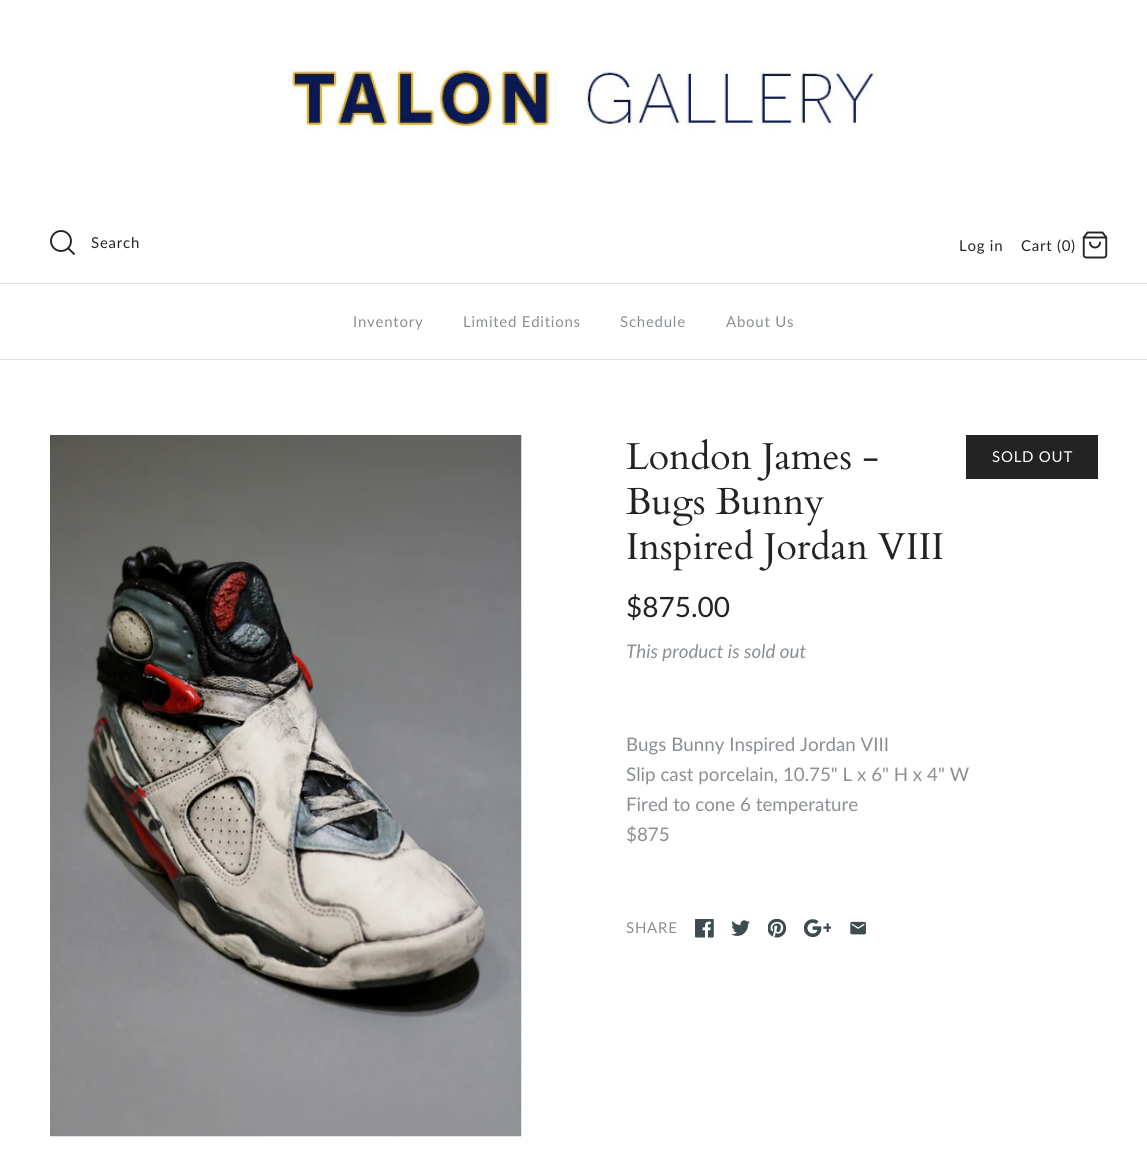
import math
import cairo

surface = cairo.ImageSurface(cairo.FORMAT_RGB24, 1147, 1158)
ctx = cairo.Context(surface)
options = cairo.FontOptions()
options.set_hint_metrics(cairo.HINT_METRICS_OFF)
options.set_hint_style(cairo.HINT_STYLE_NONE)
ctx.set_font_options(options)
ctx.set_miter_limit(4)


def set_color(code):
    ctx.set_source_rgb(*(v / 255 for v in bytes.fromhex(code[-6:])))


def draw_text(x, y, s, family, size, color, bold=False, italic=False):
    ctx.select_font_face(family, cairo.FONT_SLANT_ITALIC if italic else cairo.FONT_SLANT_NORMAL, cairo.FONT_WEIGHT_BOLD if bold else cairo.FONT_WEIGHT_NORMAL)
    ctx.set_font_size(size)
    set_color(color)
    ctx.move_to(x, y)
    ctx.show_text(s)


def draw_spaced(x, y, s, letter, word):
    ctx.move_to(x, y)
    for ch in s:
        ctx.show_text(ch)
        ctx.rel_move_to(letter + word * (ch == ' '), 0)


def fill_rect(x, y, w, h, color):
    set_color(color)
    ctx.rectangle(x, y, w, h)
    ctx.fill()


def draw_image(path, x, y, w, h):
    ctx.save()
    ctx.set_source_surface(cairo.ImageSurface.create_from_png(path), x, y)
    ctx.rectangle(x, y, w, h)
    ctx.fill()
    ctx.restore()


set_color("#ffffff")
ctx.paint()
draw_image("assets/img1.png", 287, 68, 591, 62)
ctx.arc(61, 241, 10, 0, 2 * math.pi)
set_color("#232323")
ctx.set_line_width(1.9)
ctx.stroke()
ctx.new_path()
ctx.move_to(74, 254)
ctx.line_to(68.5, 248.5)
ctx.set_line_cap(cairo.LINE_CAP_ROUND)
ctx.set_line_join(cairo.LINE_JOIN_ROUND)
ctx.stroke()
ctx.select_font_face("Lato")
ctx.set_font_size(15)
draw_spaced(91, 248, "Search", 0.75, 0)
draw_spaced(959, 251, "Log in", 0.75, 0)
draw_spaced(1021, 251, "Cart (0)", 0.75, 0)
draw_image("assets/img2.png", 1082, 231, 26, 28)
fill_rect(0, 359, 1147, 1, "#e2e2e2")
fill_rect(0, 283, 1147, 1, "#e2e2e2")
set_color("#8a8f93")
draw_spaced(353, 327, "Inventory", 0.75, 0)
draw_spaced(463, 327, "Limited Editions", 0.75, 0)
draw_spaced(620, 327, "Schedule", 0.75, 0)
draw_spaced(726, 327, "About Us", 0.75, 0)
draw_image("assets/img3.png", 50, 435, 472, 702)
draw_text(626, 469, "London James -", "Cardo", 37.5, "#232323")
draw_text(626, 514, "Bugs Bunny", "Cardo", 37.5, "#232323")
draw_text(626, 559, "Inspired Jordan VIII", "Cardo", 37.5, "#232323")
fill_rect(966, 435, 132, 44, "#232323")
ctx.select_font_face("Lato")
ctx.set_font_size(15)
set_color("#ffffff")
draw_spaced(992, 462, "SOLD OUT", 0.75, 0)
draw_text(626, 617, "$875.00", "Lato", 28, "#232323")
draw_text(626, 658, "This product is sold out", "Lato", 18.75, "#8a8f93", italic=True)
draw_text(626, 751, "Bugs Bunny Inspired Jordan VIII", "Lato", 18.75, "#8a8f93")
draw_text(626, 781, "Slip cast porcelain, 10.75\" L x 6\" H x 4\" W", "Lato", 18.75, "#8a8f93")
draw_text(626, 811, "Fired to cone 6 temperature", "Lato", 18.75, "#8a8f93")
draw_text(626, 841, "$875", "Lato", 18.75, "#8a8f93")
ctx.set_font_size(15)
draw_spaced(626, 933, "SHARE", 0.75, 0)
draw_image("assets/img4.png", 695, 919, 19, 19)
draw_image("assets/img5.png", 731, 920, 19, 16)
draw_image("assets/img6.png", 768, 919, 18, 19)
draw_image("assets/img7.png", 804, 919, 27, 19)
draw_image("assets/img8.png", 850, 921, 16, 14)
surface.write_to_png("output.png")
